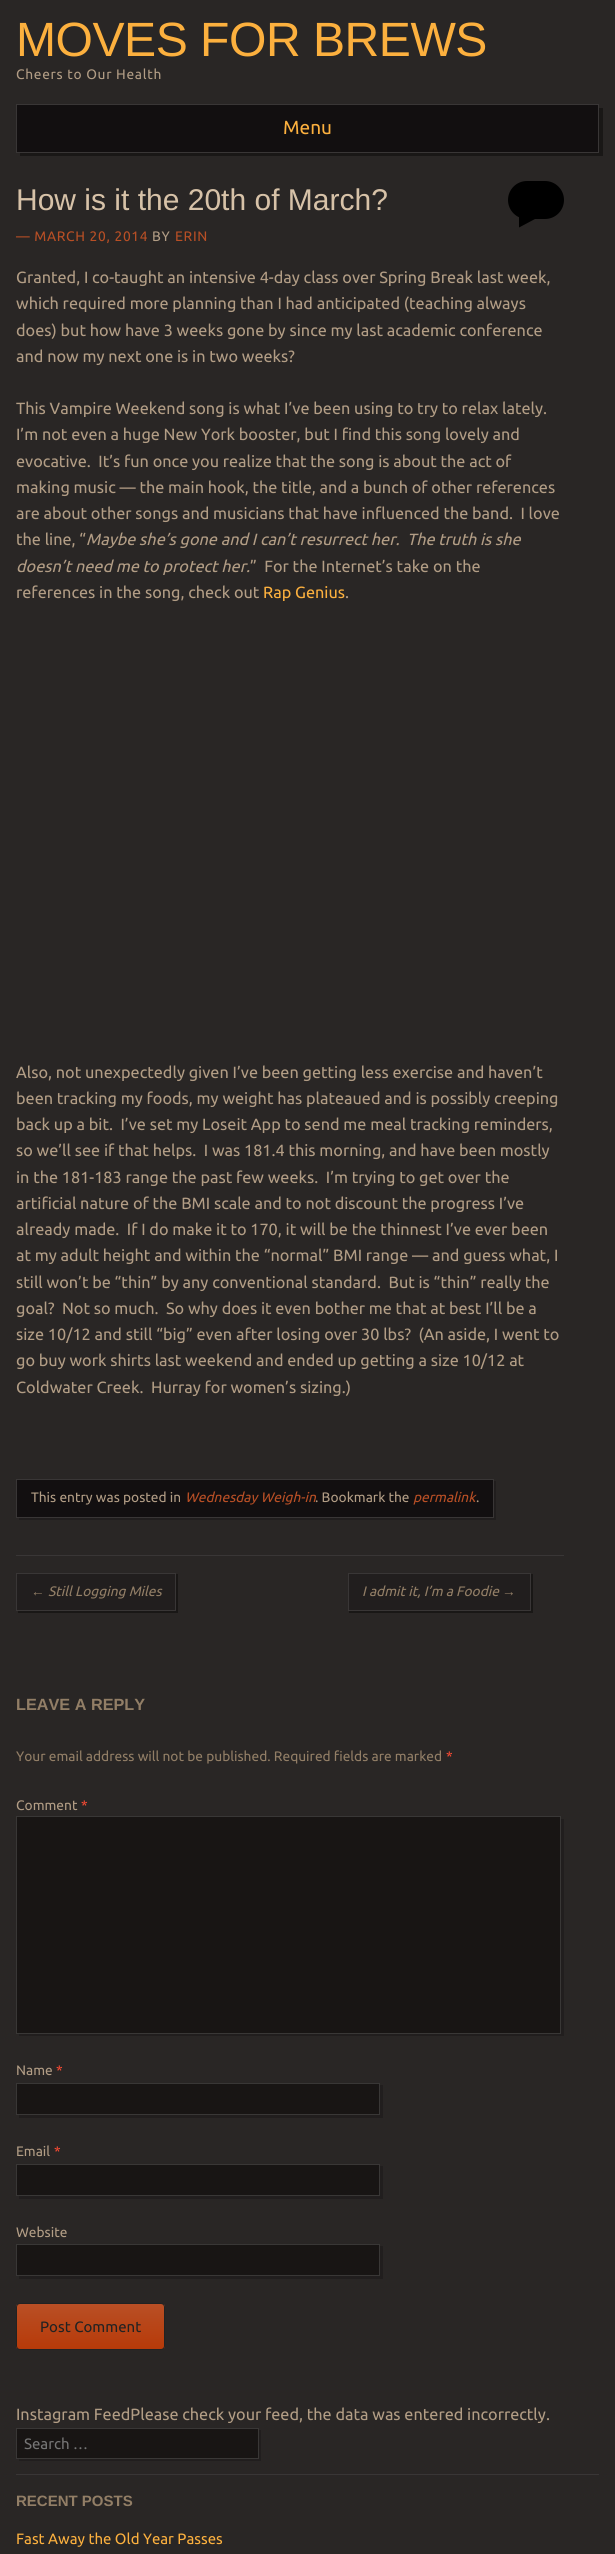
import math
import cairo

surface = cairo.ImageSurface(cairo.FORMAT_RGB24, 615, 2554)
ctx = cairo.Context(surface)
options = cairo.FontOptions()
options.set_hint_metrics(cairo.HINT_METRICS_OFF)
options.set_hint_style(cairo.HINT_STYLE_NONE)
ctx.set_font_options(options)
ctx.set_miter_limit(4)


def set_color(code):
    ctx.set_source_rgb(*(v / 255 for v in bytes.fromhex(code[-6:])))


def draw_text(x, y, s, family, size, color, bold=False, italic=False):
    ctx.select_font_face(family, cairo.FONT_SLANT_ITALIC if italic else cairo.FONT_SLANT_NORMAL, cairo.FONT_WEIGHT_BOLD if bold else cairo.FONT_WEIGHT_NORMAL)
    ctx.set_font_size(size)
    set_color(color)
    ctx.move_to(x, y)
    ctx.show_text(s)


def draw_spaced(x, y, s, letter, word):
    ctx.move_to(x, y)
    for ch in s:
        ctx.show_text(ch)
        ctx.rel_move_to(letter + word * (ch == ' '), 0)


def fill_rect(x, y, w, h, color):
    set_color(color)
    ctx.rectangle(x, y, w, h)
    ctx.fill()


def rounded_rect(x, y, w, h, r):
    ctx.new_sub_path()
    for i, (u, v) in enumerate([(x + w - r, y + h - r), (x + r, y + h - r), (x + r, y + r), (x + w - r, y + r)]):
        ctx.arc(u, v, r, i * math.pi / 2, (i + 1) * math.pi / 2)
    ctx.close_path()


set_color("#292625")
ctx.paint()
ctx.select_font_face("Liberation Sans")
ctx.set_font_size(48.1)
set_color("#fcb03e")
draw_spaced(16, 56, "MOVES FOR BREWS", -0.5, 0)
ctx.select_font_face("Ubuntu")
ctx.set_font_size(13.75)
set_color("#b29d85")
draw_spaced(16, 79, "Cheers to Our Health", 0.7, 0)
set_color("#191716")
ctx.new_path()
ctx.move_to(20, 152)
ctx.line_to(20, 156)
ctx.line_to(603, 156)
ctx.line_to(603, 108)
ctx.line_to(599, 108)
ctx.line_to(599, 152)
ctx.close_path()
ctx.fill()
set_color("#120f10")
ctx.rectangle(16.5, 104.5, 582, 48)
ctx.fill_preserve()
set_color("#393636")
ctx.set_line_width(1)
ctx.stroke()
draw_text(283, 134, "Menu", "Ubuntu", 19, "#fcb03e")
fill_rect(16, 1555, 548, 1, "#393636")
draw_text(16, 210, "How is it the 20th of March?", "Liberation Sans", 30, "#d7c2a8")
set_color("#000000")
rounded_rect(508, 181, 56, 38, 19)
ctx.fill()
ctx.new_path()
ctx.move_to(519, 227.5)
ctx.line_to(519, 215)
ctx.line_to(542.5, 215)
ctx.close_path()
ctx.fill()
ctx.select_font_face("Ubuntu")
ctx.set_font_size(13.75)
set_color("#b94f25")
draw_spaced(16, 241, "— MARCH 20, 2014", 0.7, 0)
set_color("#b29d85")
draw_spaced(152, 241, "BY", 0.7, 0)
set_color("#b94f25")
draw_spaced(175, 241, "ERIN", 0.7, 0)
draw_text(16, 283, "Granted, I co-taught an intensive 4-day class over Spring Break last week,", "Ubuntu", 16.25, "#b29d85")
draw_text(16, 309, "which required more planning than I had anticipated (teaching always", "Ubuntu", 16.25, "#b29d85")
draw_text(16, 336, "does) but how have 3 weeks gone by since my last academic conference", "Ubuntu", 16.25, "#b29d85")
draw_text(16, 362, "and now my next one is in two weeks?", "Ubuntu", 16.25, "#b29d85")
draw_text(16, 414, "This Vampire Weekend song is what I’ve been using to try to relax lately.", "Ubuntu", 16.25, "#b29d85")
draw_text(16, 440, "I’m not even a huge New York booster, but I find this song lovely and", "Ubuntu", 16.25, "#b29d85")
draw_text(16, 467, "evocative.  It’s fun once you realize that the song is about the act of", "Ubuntu", 16.25, "#b29d85")
draw_text(16, 493, "making music — the main hook, the title, and a bunch of other references", "Ubuntu", 16.25, "#b29d85")
draw_text(16, 519, "are about other songs and musicians that have influenced the band.  I love", "Ubuntu", 16.25, "#b29d85")
draw_text(16, 545, "the line, “", "Ubuntu", 16.25, "#b29d85")
draw_text(86, 545, "Maybe she’s gone and I can’t resurrect her.  The truth is she", "Ubuntu", 16.25, "#b29d85", italic=True)
draw_text(16, 572, "doesn’t need me to protect her.", "Ubuntu", 16.25, "#b29d85", italic=True)
draw_text(250, 572, "”  For the Internet’s take on the", "Ubuntu", 16.25, "#b29d85")
draw_text(16, 598, "references in the song, check out", "Ubuntu", 16.25, "#b29d85")
draw_text(263, 598, "Rap Genius", "Ubuntu", 16.25, "#fcb03e")
draw_text(345, 598, ".", "Ubuntu", 16.25, "#b29d85")
draw_text(16, 1078, "Also, not unexpectedly given I’ve been getting less exercise and haven’t", "Ubuntu", 16.25, "#b29d85")
draw_text(16, 1104, "been tracking my foods, my weight has plateaued and is possibly creeping", "Ubuntu", 16.25, "#b29d85")
draw_text(16, 1130, "back up a bit.  I’ve set my Loseit App to send me meal tracking reminders,", "Ubuntu", 16.25, "#b29d85")
draw_text(16, 1156, "so we’ll see if that helps.  I was 181.4 this morning, and have been mostly", "Ubuntu", 16.25, "#b29d85")
draw_text(16, 1183, "in the 181-183 range the past few weeks.  I’m trying to get over the", "Ubuntu", 16.25, "#b29d85")
draw_text(16, 1209, "artificial nature of the BMI scale and to not discount the progress I’ve", "Ubuntu", 16.25, "#b29d85")
draw_text(16, 1235, "already made.  If I do make it to 170, it will be the thinnest I’ve ever been", "Ubuntu", 16.25, "#b29d85")
draw_text(16, 1261, "at my adult height and within the “normal” BMI range — and guess what, I", "Ubuntu", 16.25, "#b29d85")
draw_text(16, 1288, "still won’t be “thin” by any conventional standard.  But is “thin” really the", "Ubuntu", 16.25, "#b29d85")
draw_text(16, 1314, "goal?  Not so much.  So why does it even bother me that at best I’ll be a", "Ubuntu", 16.25, "#b29d85")
draw_text(16, 1340, "size 10/12 and still “big” even after losing over 30 lbs?  (An aside, I went to", "Ubuntu", 16.25, "#b29d85")
draw_text(16, 1366, "go buy work shirts last weekend and ended up getting a size 10/12 at", "Ubuntu", 16.25, "#b29d85")
draw_text(16, 1393, "Coldwater Creek.  Hurray for women’s sizing.)", "Ubuntu", 16.25, "#b29d85")
set_color("#211e1e")
ctx.new_path()
ctx.move_to(19, 1518)
ctx.line_to(19, 1520)
ctx.line_to(496, 1520)
ctx.line_to(496, 1481)
ctx.line_to(494, 1481)
ctx.line_to(494, 1518)
ctx.close_path()
ctx.fill()
set_color("#120f10")
ctx.rectangle(16.5, 1479.5, 477, 38)
ctx.fill_preserve()
set_color("#393636")
ctx.stroke()
draw_text(31, 1502, "This entry was posted in", "Ubuntu", 13.75, "#b29d85")
draw_text(185, 1502, "Wednesday Weigh-in", "Ubuntu", 13.75, "#b94f25", italic=True)
draw_text(315, 1502, ". Bookmark the", "Ubuntu", 13.75, "#b29d85")
draw_text(413, 1502, "permalink", "Ubuntu", 13.75, "#b94f25", italic=True)
draw_text(476, 1502, ".", "Ubuntu", 13.75, "#b29d85")
set_color("#191716")
ctx.new_path()
ctx.move_to(18, 1611)
ctx.line_to(18, 1613)
ctx.line_to(178, 1613)
ctx.line_to(178, 1574)
ctx.line_to(176, 1574)
ctx.line_to(176, 1611)
ctx.close_path()
ctx.fill()
set_color("#211e1e")
ctx.rectangle(16.5, 1573.5, 159, 37)
ctx.fill_preserve()
set_color("#393636")
ctx.stroke()
draw_text(31, 1596, "←", "Liberation Sans", 13.75, "#927e66", italic=True)
draw_text(48, 1596, "Still Logging Miles", "Ubuntu", 13.75, "#927e66", italic=True)
set_color("#191716")
ctx.new_path()
ctx.move_to(349, 1611)
ctx.line_to(349, 1613)
ctx.line_to(533, 1613)
ctx.line_to(533, 1574)
ctx.line_to(531, 1574)
ctx.line_to(531, 1611)
ctx.close_path()
ctx.fill()
set_color("#211e1e")
ctx.rectangle(348.5, 1573.5, 182, 37)
ctx.fill_preserve()
set_color("#393636")
ctx.stroke()
draw_text(362, 1596, "I admit it, I’m a Foodie", "Ubuntu", 13.75, "#927e66", italic=True)
draw_text(502, 1596, "→", "Liberation Sans", 13.75, "#927e66", italic=True)
draw_text(16, 1710, "LEAVE A REPLY", "Liberation Sans", 16.25, "#927e66", bold=True)
draw_text(16, 1761, "Your email address will not be published. Required fields are marked", "Ubuntu", 13.75, "#927e66")
draw_text(446, 1761, "*", "Ubuntu", 13.75, "#ff4b33")
draw_text(16, 1810, "Comment", "Ubuntu", 13.75, "#b29d85")
draw_text(81, 1810, "*", "Ubuntu", 13.75, "#ff4b33")
set_color("#211e1e")
ctx.new_path()
ctx.move_to(19, 2034)
ctx.line_to(19, 2036)
ctx.line_to(564, 2036)
ctx.line_to(564, 1819)
ctx.line_to(561, 1819)
ctx.line_to(561, 2034)
ctx.close_path()
ctx.fill()
set_color("#181514")
ctx.rectangle(16.5, 1816.5, 544, 217)
ctx.fill_preserve()
set_color("#393736")
ctx.stroke()
draw_text(16, 2075, "Name", "Ubuntu", 13.75, "#b29d85")
draw_text(56, 2075, "*", "Ubuntu", 13.75, "#ff4b33")
set_color("#211e1e")
ctx.new_path()
ctx.move_to(19, 2115)
ctx.line_to(19, 2118)
ctx.line_to(383, 2118)
ctx.line_to(383, 2085)
ctx.line_to(380, 2085)
ctx.line_to(380, 2115)
ctx.close_path()
ctx.fill()
set_color("#181514")
ctx.rectangle(16.5, 2083.5, 363, 31)
ctx.fill_preserve()
set_color("#393736")
ctx.stroke()
draw_text(16, 2156, "Email", "Ubuntu", 13.75, "#b29d85")
draw_text(54, 2156, "*", "Ubuntu", 13.75, "#ff4b33")
set_color("#211e1e")
ctx.new_path()
ctx.move_to(19, 2196)
ctx.line_to(19, 2199)
ctx.line_to(383, 2199)
ctx.line_to(383, 2166)
ctx.line_to(380, 2166)
ctx.line_to(380, 2196)
ctx.close_path()
ctx.fill()
set_color("#181514")
ctx.rectangle(16.5, 2164.5, 363, 31)
ctx.fill_preserve()
set_color("#393736")
ctx.stroke()
draw_text(16, 2237, "Website", "Ubuntu", 13.75, "#b29d85")
set_color("#211e1e")
ctx.new_path()
ctx.move_to(19, 2276)
ctx.line_to(19, 2279)
ctx.line_to(383, 2279)
ctx.line_to(383, 2246)
ctx.line_to(380, 2246)
ctx.line_to(380, 2276)
ctx.close_path()
ctx.fill()
set_color("#181514")
ctx.rectangle(16.5, 2244.5, 363, 31)
ctx.fill_preserve()
set_color("#393736")
ctx.stroke()
ctx.save()
rounded_rect(16, 2303, 149, 47, 4)
ctx.clip()
gradient = cairo.LinearGradient(91, 2304, 91, 2349)
gradient.add_color_stop_rgba(0, 0.725, 0.31, 0.145, 1)
gradient.add_color_stop_rgba(1, 0.718, 0.227, 0.035, 1)
gradient.add_color_stop_rgba(1, 0.49, 0.725, 0.91, 1)
ctx.set_source(gradient)
ctx.rectangle(16, 2304, 149, 45)
ctx.fill()
ctx.restore()
rounded_rect(16.5, 2303.5, 148, 46, 3.5)
set_color("#222222")
ctx.stroke()
draw_text(40, 2332, "Post Comment", "Ubuntu", 15, "#222222")
draw_text(16, 2420, "Instagram FeedPlease check your feed, the data was entered incorrectly.", "Ubuntu", 16.25, "#b29d85")
set_color("#211e1e")
ctx.new_path()
ctx.move_to(19, 2459)
ctx.line_to(19, 2461)
ctx.line_to(261, 2461)
ctx.line_to(261, 2430)
ctx.line_to(259, 2430)
ctx.line_to(259, 2459)
ctx.close_path()
ctx.fill()
set_color("#181514")
ctx.rectangle(16.5, 2428.5, 242, 30)
ctx.fill_preserve()
set_color("#393736")
ctx.stroke()
draw_text(24, 2449, "Search …", "Ubuntu", 15, "#757575")
fill_rect(16, 2474, 583, 1, "#393636")
draw_text(16, 2506, "RECENT POSTS", "Liberation Sans", 15, "#927e66", bold=True)
draw_text(16, 2544, "Fast Away the Old Year Passes", "Ubuntu", 15, "#fcb03e")
surface.write_to_png("output.png")
